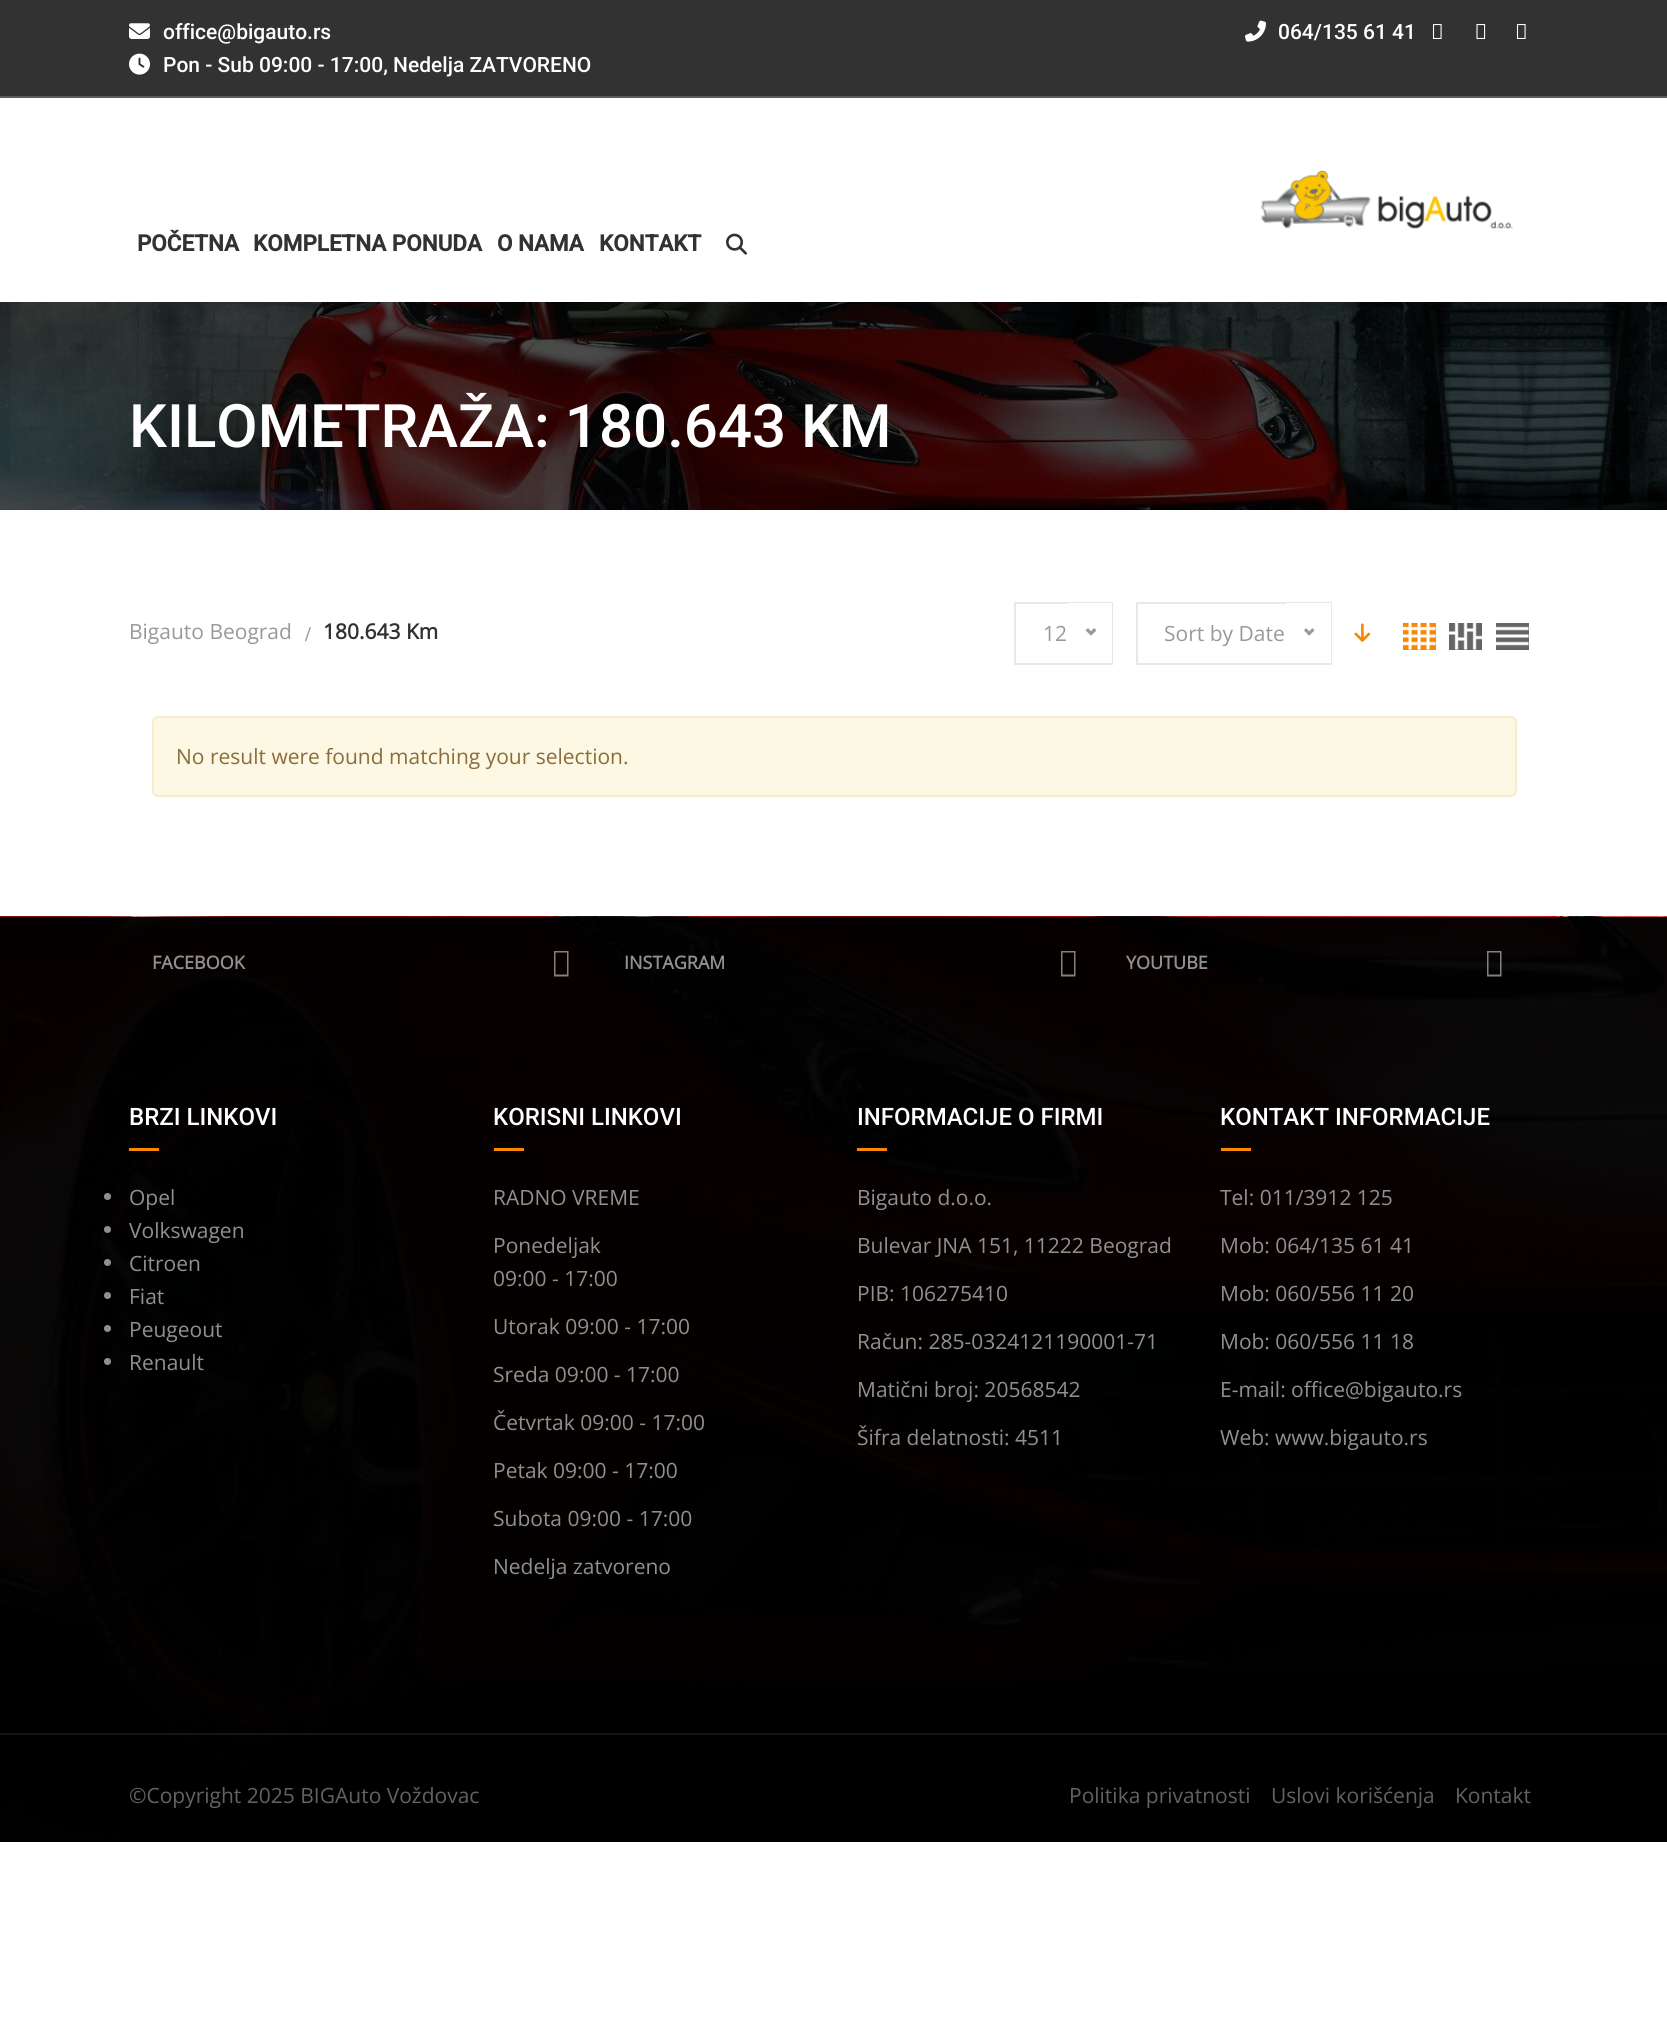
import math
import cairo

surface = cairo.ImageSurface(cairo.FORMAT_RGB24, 1667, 2031)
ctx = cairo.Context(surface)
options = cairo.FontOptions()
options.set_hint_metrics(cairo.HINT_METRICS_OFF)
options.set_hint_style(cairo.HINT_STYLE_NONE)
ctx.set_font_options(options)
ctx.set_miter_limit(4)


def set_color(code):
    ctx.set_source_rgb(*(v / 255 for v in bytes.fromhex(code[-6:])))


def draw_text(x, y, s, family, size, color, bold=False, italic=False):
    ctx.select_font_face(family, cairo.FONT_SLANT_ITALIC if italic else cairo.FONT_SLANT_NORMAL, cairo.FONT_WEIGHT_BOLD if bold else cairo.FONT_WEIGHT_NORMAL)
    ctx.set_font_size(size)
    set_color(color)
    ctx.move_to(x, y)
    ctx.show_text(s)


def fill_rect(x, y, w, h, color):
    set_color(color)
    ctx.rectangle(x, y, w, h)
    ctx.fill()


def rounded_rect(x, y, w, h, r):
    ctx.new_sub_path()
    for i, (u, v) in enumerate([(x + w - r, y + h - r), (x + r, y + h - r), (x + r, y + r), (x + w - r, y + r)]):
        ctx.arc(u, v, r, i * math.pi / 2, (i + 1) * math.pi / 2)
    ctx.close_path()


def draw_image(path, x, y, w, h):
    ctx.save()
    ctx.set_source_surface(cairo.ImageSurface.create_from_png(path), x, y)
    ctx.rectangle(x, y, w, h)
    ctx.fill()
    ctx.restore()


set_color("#ffffff")
ctx.paint()
fill_rect(0, 0, 1667, 96, "#323232")
fill_rect(0, 96, 1667, 2, "#5b5b5b")
draw_image("assets/img1.png", 129, 23, 21, 16)
draw_text(163, 39, "office@bigauto.rs", "Roboto Medium", 21, "#ffffff")
draw_image("assets/img2.png", 129, 53, 21, 22)
draw_text(163, 72, "Pon - Sub 09:00 - 17:00, Nedelja ZATVORENO", "Roboto Medium", 21, "#ffffff")
draw_image("assets/img3.png", 1245, 20, 21, 22)
draw_text(1278, 39, "064/135 61 41", "Roboto Medium", 21, "#ffffff")
draw_image("assets/img4.png", 1432, 24, 10, 15)
draw_image("assets/img5.png", 1476, 24, 10, 15)
draw_image("assets/img4.png", 1516, 24, 10, 15)
draw_image("assets/img6.png", 1260, 170, 253, 59)
draw_text(137, 251, "POČETNA", "Roboto", 22.5, "#323232", bold=True)
draw_text(253, 251, "KOMPLETNA PONUDA", "Roboto", 22.5, "#323232", bold=True)
draw_text(497, 251, "O NAMA", "Roboto", 22.5, "#323232", bold=True)
draw_text(599, 251, "KONTAKT", "Roboto", 22.5, "#323232", bold=True)
draw_image("assets/img7.png", 726, 233, 21, 22)
draw_image("assets/img8.png", 0, 302, 1667, 208)
draw_text(129, 447, "KILOMETRAŽA: 180.643 KM", "Roboto Medium", 60, "#ffffff")
draw_text(129, 639, "Bigauto Beograd", "Open Sans", 21, "#999999")
draw_text(305, 641, "/", "Liberation Serif", 21, "#999999", bold=True)
draw_text(323, 639, "180.643 Km", "Open Sans", 21, "#323232", bold=True)
ctx.rectangle(1015, 603, 97, 61)
set_color("#e8e8e8")
ctx.stroke()
draw_text(1043, 641, "12", "Open Sans", 21, "#999999")
fill_rect(1067, 603, 45, 60, "#ffffff")
set_color("#999999")
ctx.new_path()
ctx.move_to(1094, 628)
ctx.line_to(1096.5, 630.5)
ctx.line_to(1091, 635.5)
ctx.line_to(1089, 633.5)
ctx.close_path()
ctx.fill()
ctx.new_path()
ctx.move_to(1088, 628)
ctx.line_to(1093, 633.5)
ctx.line_to(1091, 635.5)
ctx.line_to(1085.5, 630.5)
ctx.close_path()
ctx.fill()
ctx.rectangle(1137, 603, 194, 61)
set_color("#e8e8e8")
ctx.stroke()
draw_text(1164, 641, "Sort by Date", "Open Sans", 21, "#999999")
fill_rect(1286, 603, 45, 60, "#ffffff")
set_color("#999999")
ctx.new_path()
ctx.move_to(1312.5, 628)
ctx.line_to(1314.5, 630.5)
ctx.line_to(1309, 635.5)
ctx.line_to(1307, 633.5)
ctx.close_path()
ctx.fill()
ctx.new_path()
ctx.move_to(1306, 628)
ctx.line_to(1311.5, 633.5)
ctx.line_to(1309, 635.5)
ctx.line_to(1304, 630.5)
ctx.close_path()
ctx.fill()
draw_image("assets/img9.png", 1354, 623, 17, 19)
fill_rect(1403, 623, 33, 27, "#fc8602")
draw_image("assets/img10.png", 1403, 623, 33, 27)
fill_rect(1449, 623, 33, 27, "#656565")
draw_image("assets/img11.png", 1449, 623, 33, 27)
fill_rect(1496, 623, 33, 27, "#656565")
draw_image("assets/img12.png", 1496, 626, 33, 20)
set_color("#fcf8e3")
rounded_rect(153, 717, 1363, 79, 5)
ctx.fill_preserve()
set_color("#faebcc")
ctx.stroke()
draw_text(176, 764, "No result were found matching your selection.", "Open Sans", 21, "#8a6d3b")
draw_image("assets/img13.png", 0, 916, 1667, 926)
draw_text(152, 969, "FACEBOOK", "Open Sans", 18, "#909090", bold=True)
set_color("#828080")
ctx.new_path()
ctx.move_to(554, 976.5)
ctx.line_to(554, 951)
ctx.line_to(568.5, 951)
ctx.line_to(568.5, 976.5)
ctx.close_path()
ctx.move_to(555.5, 974.5)
ctx.line_to(567, 974.5)
ctx.line_to(567, 952.5)
ctx.line_to(555.5, 952.5)
ctx.close_path()
ctx.fill()
draw_text(624, 969, "INSTAGRAM", "Open Sans", 18, "#909090", bold=True)
set_color("#828080")
ctx.new_path()
ctx.move_to(1061, 976.5)
ctx.line_to(1061, 951)
ctx.line_to(1075.5, 951)
ctx.line_to(1075.5, 976.5)
ctx.close_path()
ctx.move_to(1062.5, 974.5)
ctx.line_to(1074, 974.5)
ctx.line_to(1074, 952.5)
ctx.line_to(1062.5, 952.5)
ctx.close_path()
ctx.fill()
draw_text(1126, 969, "YOUTUBE", "Open Sans", 18, "#909090", bold=True)
ctx.set_source_rgba(1, 1, 1, 0.5)
ctx.new_path()
ctx.move_to(1487, 976.5)
ctx.line_to(1487, 951)
ctx.line_to(1501.5, 951)
ctx.line_to(1501.5, 976.5)
ctx.close_path()
ctx.move_to(1488.5, 974.5)
ctx.line_to(1500, 974.5)
ctx.line_to(1500, 952.5)
ctx.line_to(1488.5, 952.5)
ctx.close_path()
ctx.fill()
draw_text(129, 1125, "BRZI LINKOVI", "Roboto Medium", 24, "#ffffff")
fill_rect(129, 1148, 30, 3, "#fc8602")
set_color("#909090")
ctx.new_path()
ctx.arc(107.5, 1196.5, 3.5, 0, 2 * math.pi)
ctx.fill()
draw_text(129, 1205, "Opel", "Open Sans", 21, "#909090")
ctx.new_path()
ctx.arc(107.5, 1229.5, 3.5, 0, 2 * math.pi)
ctx.fill()
draw_text(129, 1238, "Volkswagen", "Open Sans", 21, "#909090")
ctx.new_path()
ctx.arc(107.5, 1262.5, 3.5, 0, 2 * math.pi)
ctx.fill()
draw_text(129, 1271, "Citroen", "Open Sans", 21, "#909090")
ctx.new_path()
ctx.arc(107.5, 1295.5, 3.5, 0, 2 * math.pi)
ctx.fill()
draw_text(129, 1304, "Fiat", "Open Sans", 21, "#909090")
ctx.new_path()
ctx.arc(107.5, 1328.5, 3.5, 0, 2 * math.pi)
ctx.fill()
draw_text(129, 1337, "Peugeout", "Open Sans", 21, "#909090")
ctx.new_path()
ctx.arc(107.5, 1361.5, 3.5, 0, 2 * math.pi)
ctx.fill()
draw_text(129, 1370, "Renault", "Open Sans", 21, "#909090")
draw_text(493, 1125, "KORISNI LINKOVI", "Roboto Medium", 24, "#ffffff")
fill_rect(494, 1148, 30, 3, "#fc8602")
draw_text(493, 1205, "RADNO VREME", "Open Sans", 21, "#909090")
draw_text(493, 1253, "Ponedeljak", "Open Sans", 21, "#909090")
draw_text(493, 1286, "09:00 - 17:00", "Open Sans", 21, "#909090")
draw_text(493, 1334, "Utorak 09:00 - 17:00", "Open Sans", 21, "#909090")
draw_text(493, 1382, "Sreda 09:00 - 17:00", "Open Sans", 21, "#909090")
draw_text(493, 1430, "Četvrtak 09:00 - 17:00", "Open Sans", 21, "#909090")
draw_text(493, 1478, "Petak 09:00 - 17:00", "Open Sans", 21, "#909090")
draw_text(493, 1526, "Subota 09:00 - 17:00", "Open Sans", 21, "#909090")
draw_text(493, 1574, "Nedelja zatvoreno", "Open Sans", 21, "#909090")
draw_text(857, 1125, "INFORMACIJE O FIRMI", "Roboto Medium", 24, "#ffffff")
fill_rect(857, 1148, 30, 3, "#fc8602")
draw_text(857, 1205, "Bigauto d.o.o.", "Open Sans", 21, "#909090")
draw_text(857, 1253, "Bulevar JNA 151, 11222 Beograd", "Open Sans", 21, "#909090")
draw_text(857, 1301, "PIB: 106275410", "Open Sans", 21, "#909090")
draw_text(857, 1349, "Račun: 285-0324121190001-71", "Open Sans", 21, "#909090")
draw_text(857, 1397, "Matični broj: 20568542", "Open Sans", 21, "#909090")
draw_text(857, 1445, "Šifra delatnosti: 4511", "Open Sans", 21, "#909090")
draw_text(1220, 1125, "KONTAKT INFORMACIJE", "Roboto Medium", 24, "#ffffff")
fill_rect(1221, 1148, 30, 3, "#fc8602")
draw_text(1220, 1205, "Tel: 011/3912 125", "Open Sans", 21, "#909090")
draw_text(1220, 1253, "Mob: 064/135 61 41", "Open Sans", 21, "#909090")
draw_text(1220, 1301, "Mob: 060/556 11 20", "Open Sans", 21, "#909090")
draw_text(1220, 1349, "Mob: 060/556 11 18", "Open Sans", 21, "#909090")
draw_text(1220, 1397, "E-mail: office@bigauto.rs", "Open Sans", 21, "#909090")
draw_text(1220, 1445, "Web: www.bigauto.rs", "Open Sans", 21, "#909090")
fill_rect(0, 1733, 1667, 2, "#151515")
draw_text(129, 1803, "©Copyright 2025 BIGAuto Voždovac", "Open Sans", 21, "#626262")
draw_text(1069, 1803, "Politika privatnosti", "Open Sans", 21, "#626262")
draw_text(1271, 1803, "Uslovi korišćenja", "Open Sans", 21, "#626262")
draw_text(1455, 1803, "Kontakt", "Open Sans", 21, "#626262")
surface.write_to_png("output.png")
